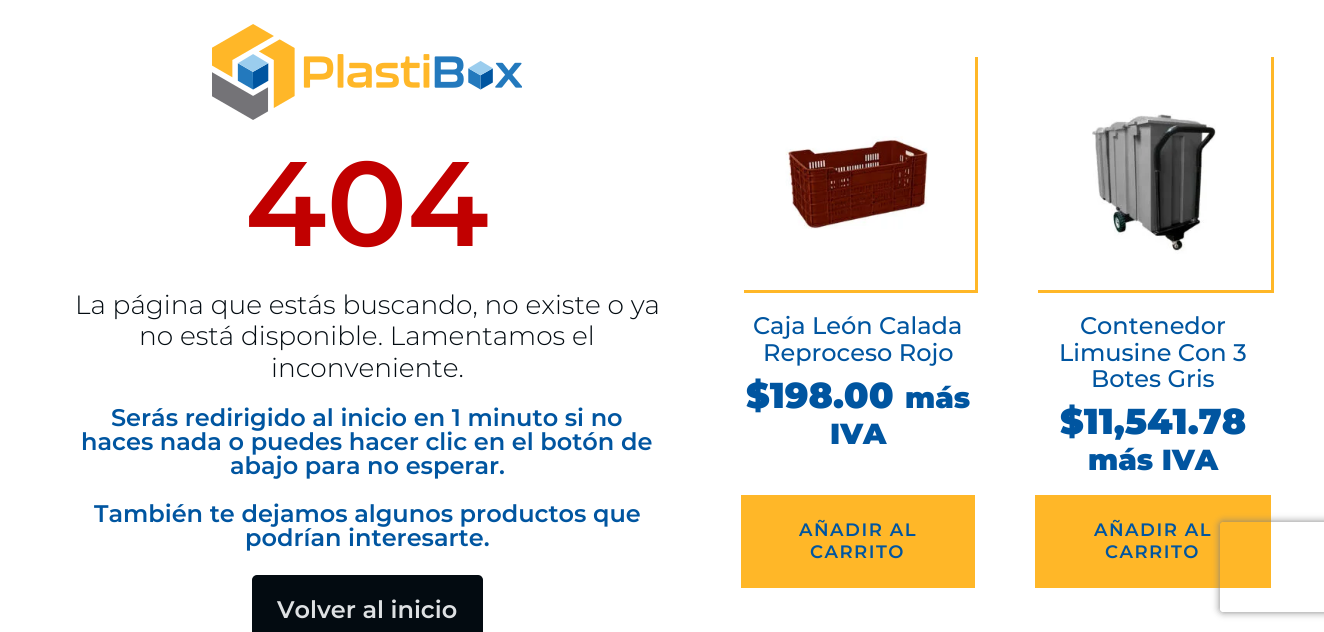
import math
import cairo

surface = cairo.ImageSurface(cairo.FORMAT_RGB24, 1324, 632)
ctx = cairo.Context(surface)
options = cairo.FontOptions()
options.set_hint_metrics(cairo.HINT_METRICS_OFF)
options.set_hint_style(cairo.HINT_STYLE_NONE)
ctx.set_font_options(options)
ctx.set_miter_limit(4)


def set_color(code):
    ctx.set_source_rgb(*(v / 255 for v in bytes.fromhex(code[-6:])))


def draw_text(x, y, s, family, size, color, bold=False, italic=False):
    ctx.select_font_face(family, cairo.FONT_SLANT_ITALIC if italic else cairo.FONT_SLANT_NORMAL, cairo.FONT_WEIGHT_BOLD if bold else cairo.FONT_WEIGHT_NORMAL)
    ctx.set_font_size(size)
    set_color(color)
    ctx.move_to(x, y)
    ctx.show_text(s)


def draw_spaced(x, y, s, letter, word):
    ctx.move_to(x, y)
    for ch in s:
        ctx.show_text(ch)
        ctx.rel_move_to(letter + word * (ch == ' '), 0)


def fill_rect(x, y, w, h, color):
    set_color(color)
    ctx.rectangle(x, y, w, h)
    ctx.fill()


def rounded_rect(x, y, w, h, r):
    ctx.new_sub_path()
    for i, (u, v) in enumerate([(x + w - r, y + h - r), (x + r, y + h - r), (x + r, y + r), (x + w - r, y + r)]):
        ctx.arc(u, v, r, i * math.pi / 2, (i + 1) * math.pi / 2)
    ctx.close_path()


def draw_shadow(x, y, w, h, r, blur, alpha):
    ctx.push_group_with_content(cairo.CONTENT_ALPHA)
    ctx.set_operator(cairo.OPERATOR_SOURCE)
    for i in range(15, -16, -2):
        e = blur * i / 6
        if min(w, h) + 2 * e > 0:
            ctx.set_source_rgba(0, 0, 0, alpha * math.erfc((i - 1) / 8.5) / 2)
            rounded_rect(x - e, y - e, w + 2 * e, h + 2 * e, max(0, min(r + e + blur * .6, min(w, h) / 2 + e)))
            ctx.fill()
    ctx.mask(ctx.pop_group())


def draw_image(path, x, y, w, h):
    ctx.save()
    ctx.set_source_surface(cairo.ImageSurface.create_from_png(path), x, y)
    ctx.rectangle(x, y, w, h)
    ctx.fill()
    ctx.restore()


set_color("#ffffff")
ctx.paint()
draw_image("assets/img1.png", 212, 24, 310, 96)
draw_text(245, 246, "404", "Montserrat SemiBold", 120, "#c10000")
draw_text(75, 314, "La página que estás buscando, no existe o ya", "Montserrat Light", 26.4, "#030b11")
draw_text(139, 345, "no está disponible. Lamentamos el", "Montserrat Light", 26.4, "#030b11")
draw_text(271, 377, "inconveniente.", "Montserrat Light", 26.4, "#030b11")
draw_text(111, 426, "Serás redirigido al inicio en 1 minuto si no", "Montserrat SemiBold", 24, "#0055a0")
draw_text(81, 450, "haces nada o puedes hacer clic en el botón de", "Montserrat SemiBold", 24, "#0055a0")
draw_text(230, 474, "abajo para no esperar.", "Montserrat SemiBold", 24, "#0055a0")
draw_text(94, 522, "También te dejamos algunos productos que", "Montserrat SemiBold", 24, "#0055a0")
draw_text(245, 546, "podrían interesarte.", "Montserrat SemiBold", 24, "#0055a0")
set_color("#030b11")
rounded_rect(253, 576, 229, 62, 4)
ctx.fill_preserve()
ctx.stroke()
draw_text(277, 618, "Volver al inicio", "Montserrat SemiBold", 24, "#dee1e3")
set_color("#ffb728")
ctx.new_path()
ctx.move_to(744, 290)
ctx.line_to(744, 293)
ctx.line_to(978, 293)
ctx.line_to(978, 57)
ctx.line_to(975, 57)
ctx.line_to(975, 290)
ctx.close_path()
ctx.fill()
draw_image("assets/img2.png", 785, 136, 143, 93)
draw_text(753, 334, "Caja León Calada", "Montserrat Medium", 24, "#0055a0")
draw_text(763, 361, "Reproceso Rojo", "Montserrat Medium", 24, "#0055a0")
draw_text(746, 408, "$198.00", "Montserrat Black", 36, "#0055a0")
draw_text(905, 408, "más", "Montserrat Black", 29, "#0055a0")
draw_text(830, 444, "IVA", "Montserrat Black", 29, "#0055a0")
fill_rect(741, 495, 234, 93, "#ffb728")
ctx.select_font_face("Montserrat SemiBold")
ctx.set_font_size(18)
set_color("#0055a0")
draw_spaced(799, 536, "AÑADIR AL", 1.5, 0)
draw_spaced(810, 558, "CARRITO", 1.5, 0)
set_color("#ffb728")
ctx.new_path()
ctx.move_to(1038, 290)
ctx.line_to(1038, 293)
ctx.line_to(1274, 293)
ctx.line_to(1274, 57)
ctx.line_to(1270, 57)
ctx.line_to(1270, 290)
ctx.close_path()
ctx.fill()
ctx.rectangle(1036, 55, 234, 234)
set_color("#ffffff")
ctx.stroke()
draw_image("assets/img3.png", 1092, 114, 124, 140)
draw_text(1080, 334, "Contenedor", "Montserrat Medium", 24, "#0055a0")
draw_text(1059, 361, "Limusine Con 3", "Montserrat Medium", 24, "#0055a0")
draw_text(1091, 387, "Botes Gris", "Montserrat Medium", 24, "#0055a0")
draw_text(1060, 434, "$11,541.78", "Montserrat Black", 36, "#0055a0")
draw_text(1088, 470, "más IVA", "Montserrat Black", 29, "#0055a0")
fill_rect(1035, 495, 236, 93, "#ffb728")
ctx.select_font_face("Montserrat SemiBold")
ctx.set_font_size(18)
set_color("#0055a0")
draw_spaced(1094, 536, "AÑADIR AL", 1.5, 0)
draw_spaced(1105, 558, "CARRITO", 1.5, 0)
ctx.save()
ctx.set_fill_rule(cairo.FILL_RULE_EVEN_ODD)
ctx.new_path()
ctx.move_to(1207, 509)
ctx.line_to(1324, 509)
ctx.line_to(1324, 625)
ctx.line_to(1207, 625)
ctx.close_path()
ctx.move_to(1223, 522)
ctx.line_to(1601, 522)
ctx.curve_to(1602.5, 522, 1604, 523.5, 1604, 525)
ctx.line_to(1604, 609)
ctx.curve_to(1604, 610.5, 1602.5, 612, 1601, 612)
ctx.line_to(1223, 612)
ctx.curve_to(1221.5, 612, 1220, 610.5, 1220, 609)
ctx.line_to(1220, 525)
ctx.curve_to(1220, 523.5, 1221.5, 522, 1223, 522)
ctx.close_path()
ctx.clip()
set_color("#808080")
draw_shadow(1220, 522, 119, 90, 3, 4, 1)
ctx.restore()
surface.write_to_png("output.png")
